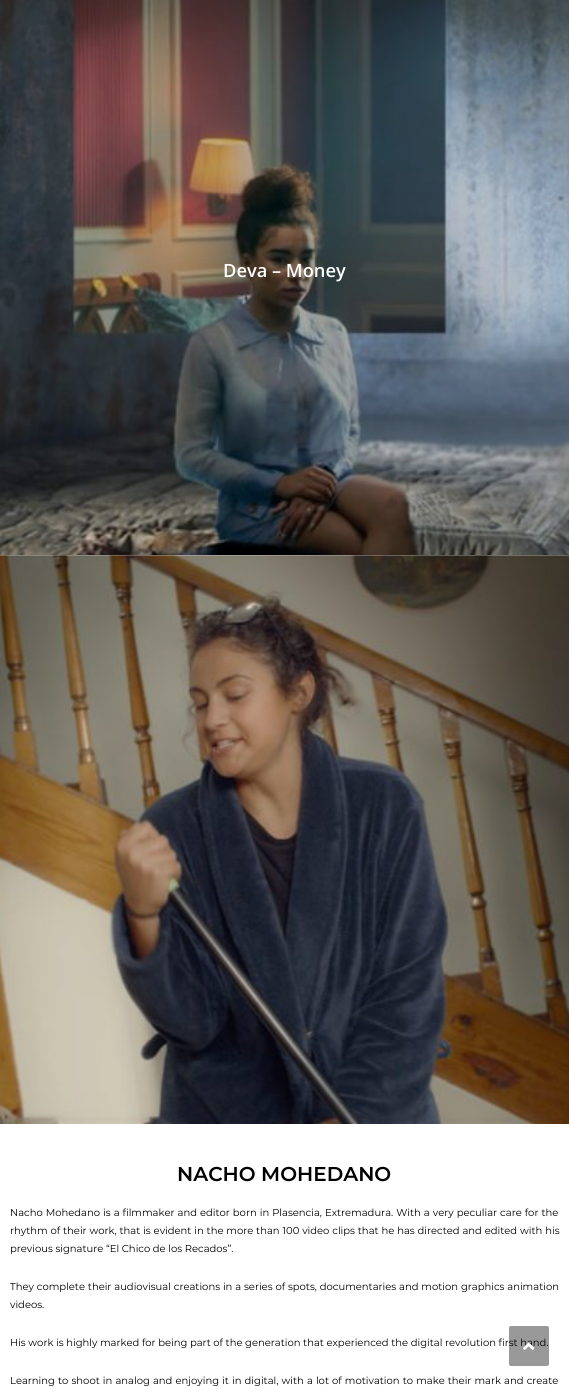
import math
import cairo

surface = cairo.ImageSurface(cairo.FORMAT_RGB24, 569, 1386)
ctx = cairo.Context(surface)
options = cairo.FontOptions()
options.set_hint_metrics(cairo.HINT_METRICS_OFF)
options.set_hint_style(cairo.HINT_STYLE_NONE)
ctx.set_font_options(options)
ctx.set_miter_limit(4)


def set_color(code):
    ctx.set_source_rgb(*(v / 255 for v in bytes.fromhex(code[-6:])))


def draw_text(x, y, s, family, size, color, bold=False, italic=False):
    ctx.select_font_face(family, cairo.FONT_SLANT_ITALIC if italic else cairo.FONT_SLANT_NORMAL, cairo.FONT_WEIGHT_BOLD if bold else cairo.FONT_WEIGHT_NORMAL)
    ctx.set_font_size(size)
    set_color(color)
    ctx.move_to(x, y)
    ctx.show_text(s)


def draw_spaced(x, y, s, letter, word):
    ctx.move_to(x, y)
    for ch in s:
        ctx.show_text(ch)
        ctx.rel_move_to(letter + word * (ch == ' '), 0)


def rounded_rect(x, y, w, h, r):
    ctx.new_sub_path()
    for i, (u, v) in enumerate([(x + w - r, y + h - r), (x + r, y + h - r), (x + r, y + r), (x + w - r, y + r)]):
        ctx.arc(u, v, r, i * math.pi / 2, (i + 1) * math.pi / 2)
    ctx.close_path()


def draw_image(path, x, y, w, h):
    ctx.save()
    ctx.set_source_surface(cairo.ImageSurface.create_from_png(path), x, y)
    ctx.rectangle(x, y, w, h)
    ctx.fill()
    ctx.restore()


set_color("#ffffff")
ctx.paint()
draw_image("assets/img1.png", 0, 0, 569, 555)
draw_text(223, 277, "Deva – Money", "Open Sans SemiBold", 18.25, "#ffffff")
draw_image("assets/img2.png", 0, 555, 569, 569)
draw_text(177, 1181, "NACHO MOHEDANO", "Montserrat SemiBold", 20, "#000000")
ctx.select_font_face("Montserrat")
ctx.set_font_size(10)
draw_spaced(10, 1216, "Nacho Mohedano is a filmmaker and editor born in Plasencia, Extremadura. With a very peculiar care for the", 0, 0.4)
draw_spaced(10, 1234, "rhythm of their work, that is evident in the more than 100 video clips that he has directed and edited with his", 0, 0.25)
draw_text(10, 1252, "previous signature “El Chico de los Recados”.", "Montserrat", 10, "#000000")
draw_spaced(10, 1290, "They complete their audiovisual creations in a series of spots, documentaries and motion graphics animation", 0, 0.25)
draw_text(10, 1308, "videos.", "Montserrat", 10, "#000000")
draw_text(10, 1346, "His work is highly marked for being part of the generation that experienced the digital revolution first hand.", "Montserrat", 10, "#000000")
draw_spaced(10, 1384, "Learning to shoot in analog and enjoying it in digital, with a lot of motivation to make their mark and create", 0, 0.5)
ctx.set_source_rgba(0, 0, 0, 0.4)
rounded_rect(509, 1326, 40, 40, 2)
ctx.fill()
draw_image("assets/img3.png", 523, 1342, 12, 8)
surface.write_to_png("output.png")
